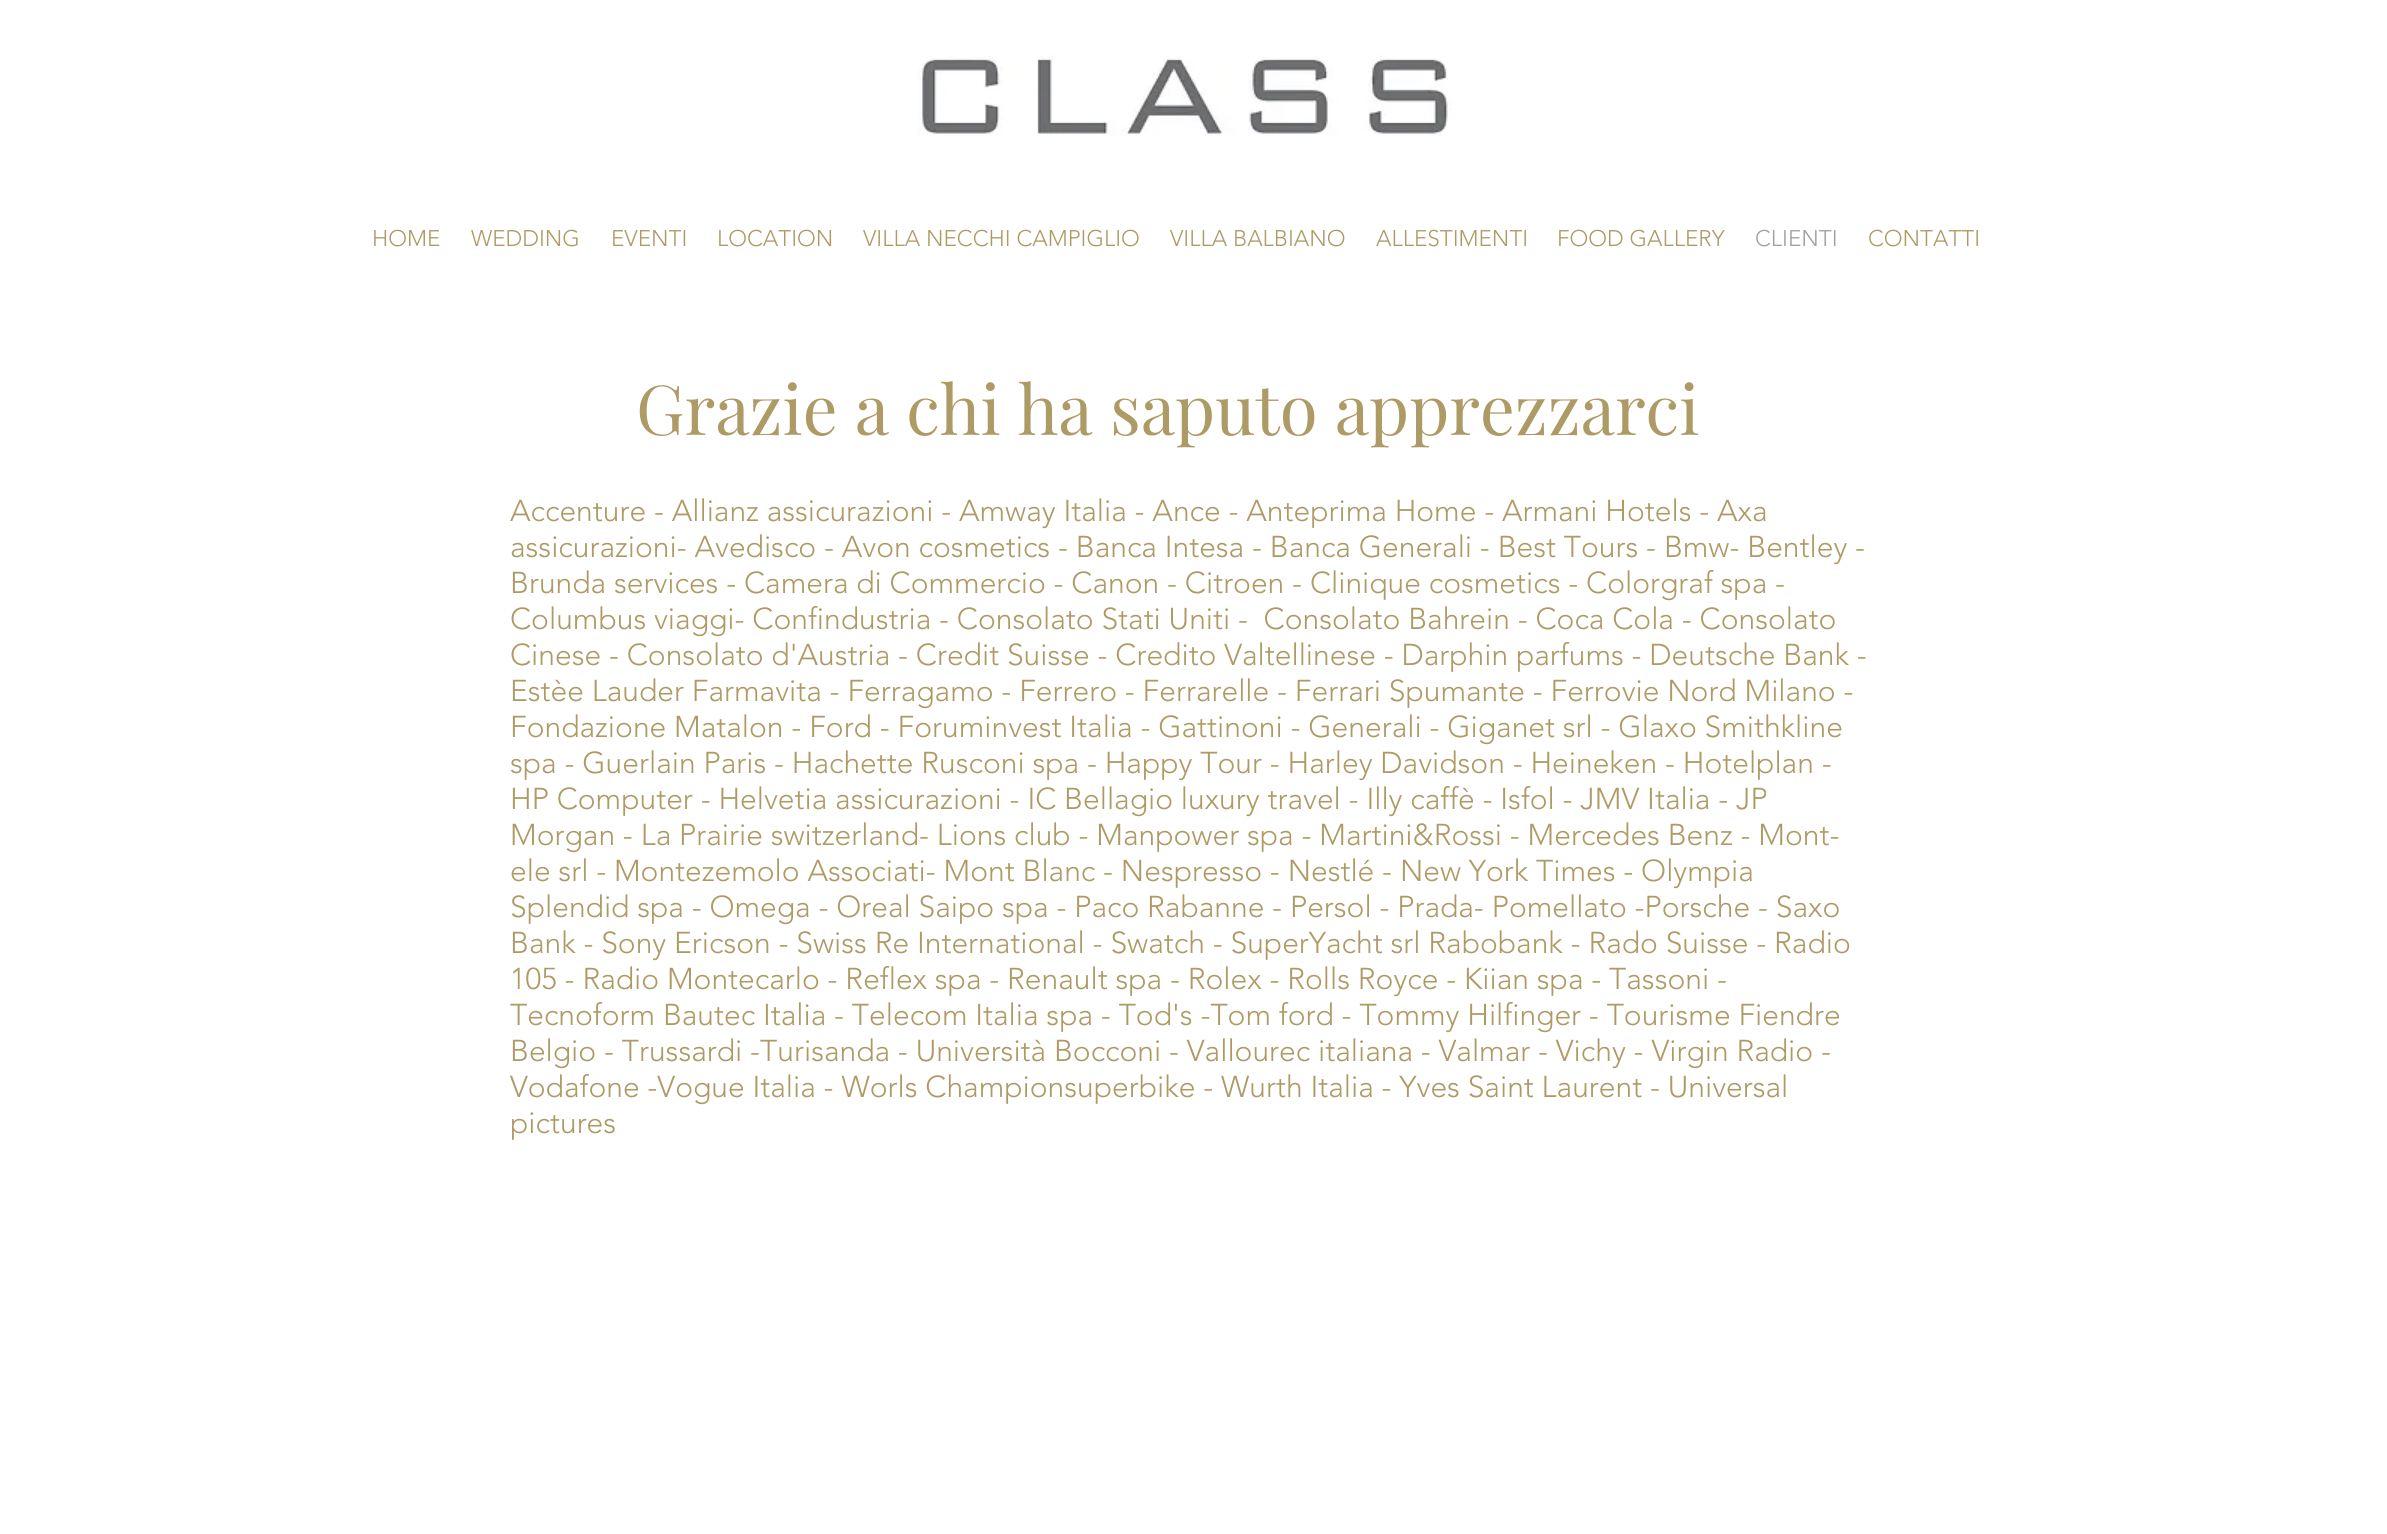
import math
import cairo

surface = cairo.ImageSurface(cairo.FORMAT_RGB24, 2387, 1534)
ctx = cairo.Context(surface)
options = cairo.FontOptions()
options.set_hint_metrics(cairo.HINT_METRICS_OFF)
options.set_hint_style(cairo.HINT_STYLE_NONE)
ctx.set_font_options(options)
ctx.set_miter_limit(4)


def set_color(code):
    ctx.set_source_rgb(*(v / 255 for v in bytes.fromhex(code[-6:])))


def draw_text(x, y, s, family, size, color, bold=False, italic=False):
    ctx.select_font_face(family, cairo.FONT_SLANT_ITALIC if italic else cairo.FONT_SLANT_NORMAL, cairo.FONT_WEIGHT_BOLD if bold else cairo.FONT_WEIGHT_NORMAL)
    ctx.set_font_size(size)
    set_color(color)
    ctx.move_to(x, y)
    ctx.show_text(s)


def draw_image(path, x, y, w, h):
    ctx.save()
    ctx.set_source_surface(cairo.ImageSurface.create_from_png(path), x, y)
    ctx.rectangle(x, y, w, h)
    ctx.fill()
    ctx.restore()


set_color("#ffffff")
ctx.paint()
draw_image("assets/img1.png", 918, 55, 534, 81)
draw_text(372, 246, "HOME", "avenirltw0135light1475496 Light", 22.5, "#ae9a65")
draw_text(471, 246, "WEDDING", "avenirltw0135light1475496 Light", 22.5, "#ae9a65")
draw_text(611, 246, "EVENTI", "avenirltw0135light1475496 Light", 22.5, "#ae9a65")
draw_text(717, 246, "LOCATION", "avenirltw0135light1475496 Light", 22.5, "#ae9a65")
draw_text(863, 246, "VILLA NECCHI CAMPIGLIO", "avenirltw0135light1475496 Light", 22.5, "#ae9a65")
draw_text(1170, 246, "VILLA BALBIANO", "avenirltw0135light1475496 Light", 22.5, "#ae9a65")
draw_text(1376, 246, "ALLESTIMENTI", "avenirltw0135light1475496 Light", 22.5, "#ae9a65")
draw_text(1557, 246, "FOOD GALLERY", "avenirltw0135light1475496 Light", 22.5, "#ae9a65")
draw_text(1755, 246, "CLIENTI", "avenirltw0135light1475496 Light", 22.5, "#a0a09f")
draw_text(1868, 246, "CONTATTI", "avenirltw0135light1475496 Light", 22.5, "#ae9a65")
draw_text(636, 435, "Grazie a chi ha saputo apprezzarci", "Playfair Display", 69, "#ae9a65")
draw_text(510, 521, "Accenture - Allianz assicurazioni - Amway Italia - Ance - Anteprima Home - Armani Hotels - Axa", "avenirltw0135light1475496 Light", 30, "#ae9a65")
draw_text(510, 557, "assicurazioni- Avedisco - Avon cosmetics - Banca Intesa - Banca Generali - Best Tours - Bmw- Bentley -", "avenirltw0135light1475496 Light", 30, "#ae9a65")
draw_text(510, 593, "Brunda services - Camera di Commercio - Canon - Citroen - Clinique cosmetics - Colorgraf spa -", "avenirltw0135light1475496 Light", 30, "#ae9a65")
draw_text(510, 629, "Columbus viaggi- Confindustria - Consolato Stati Uniti -  Consolato Bahrein - Coca Cola - Consolato", "avenirltw0135light1475496 Light", 30, "#ae9a65")
draw_text(510, 665, "Cinese - Consolato d'Austria - Credit Suisse - Credito Valtellinese - Darphin parfums - Deutsche Bank -", "avenirltw0135light1475496 Light", 30, "#ae9a65")
draw_text(510, 701, "Estèe Lauder Farmavita - Ferragamo - Ferrero - Ferrarelle - Ferrari Spumante - Ferrovie Nord Milano -", "avenirltw0135light1475496 Light", 30, "#ae9a65")
draw_text(510, 737, "Fondazione Matalon - Ford - Foruminvest Italia - Gattinoni - Generali - Giganet srl - Glaxo Smithkline", "avenirltw0135light1475496 Light", 30, "#ae9a65")
draw_text(510, 773, "spa - Guerlain Paris - Hachette Rusconi spa - Happy Tour - Harley Davidson - Heineken - Hotelplan -", "avenirltw0135light1475496 Light", 30, "#ae9a65")
draw_text(510, 809, "HP Computer - Helvetia assicurazioni - IC Bellagio luxury travel - Illy caffè - Isfol - JMV Italia - JP", "avenirltw0135light1475496 Light", 30, "#ae9a65")
draw_text(510, 845, "Morgan - La Prairie switzerland- Lions club - Manpower spa - Martini&Rossi - Mercedes Benz - Mont-", "avenirltw0135light1475496 Light", 30, "#ae9a65")
draw_text(510, 881, "ele srl - Montezemolo Associati- Mont Blanc - Nespresso - Nestlé - New York Times - Olympia", "avenirltw0135light1475496 Light", 30, "#ae9a65")
draw_text(510, 917, "Splendid spa - Omega - Oreal Saipo spa - Paco Rabanne - Persol - Prada- Pomellato -Porsche - Saxo", "avenirltw0135light1475496 Light", 30, "#ae9a65")
draw_text(510, 953, "Bank - Sony Ericson - Swiss Re International - Swatch - SuperYacht srl Rabobank - Rado Suisse - Radio", "avenirltw0135light1475496 Light", 30, "#ae9a65")
draw_text(510, 989, "105 - Radio Montecarlo - Reflex spa - Renault spa - Rolex - Rolls Royce - Kiian spa - Tassoni -", "avenirltw0135light1475496 Light", 30, "#ae9a65")
draw_text(510, 1025, "Tecnoform Bautec Italia - Telecom Italia spa - Tod's -Tom ford - Tommy Hilfinger - Tourisme Fiendre", "avenirltw0135light1475496 Light", 30, "#ae9a65")
draw_text(510, 1061, "Belgio - Trussardi -Turisanda - Università Bocconi - Vallourec italiana - Valmar - Vichy - Virgin Radio -", "avenirltw0135light1475496 Light", 30, "#ae9a65")
draw_text(510, 1097, "Vodafone -Vogue Italia - Worls Championsuperbike - Wurth Italia - Yves Saint Laurent - Universal", "avenirltw0135light1475496 Light", 30, "#ae9a65")
draw_text(510, 1133, "pictures", "avenirltw0135light1475496 Light", 30, "#ae9a65")
surface.write_to_png("output.png")
